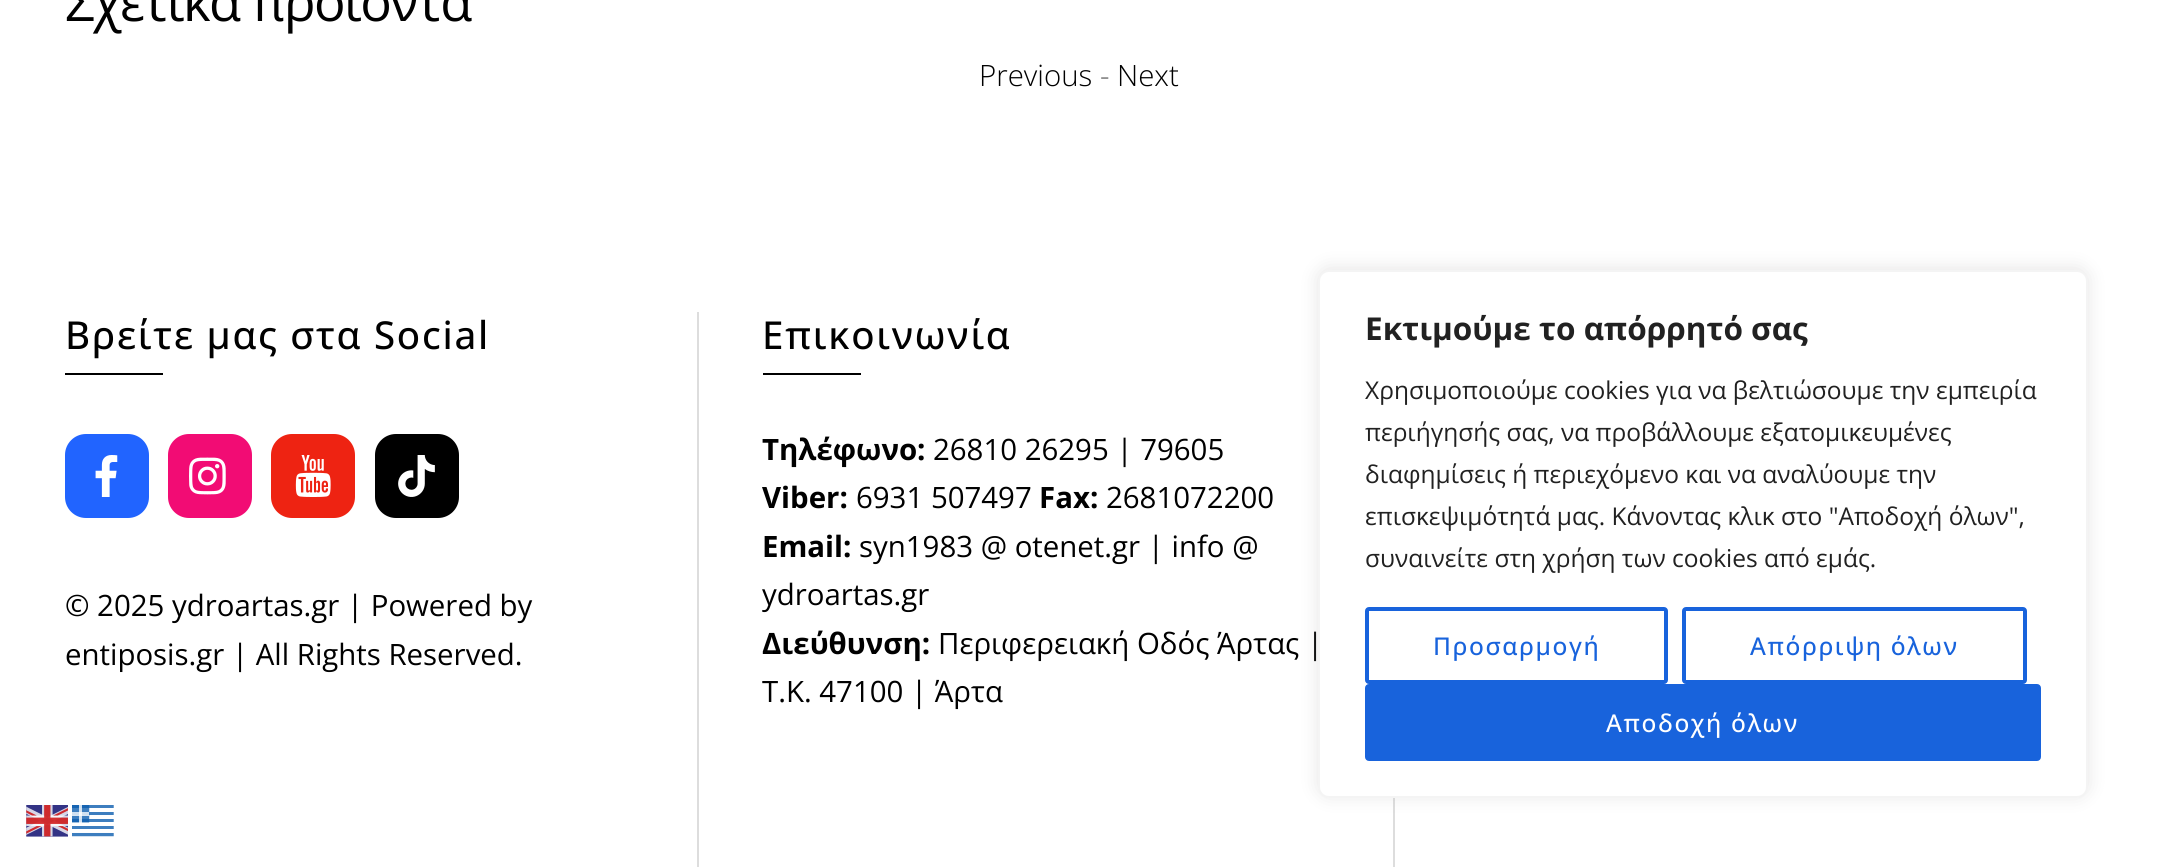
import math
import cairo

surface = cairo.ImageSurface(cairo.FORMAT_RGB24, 2157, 867)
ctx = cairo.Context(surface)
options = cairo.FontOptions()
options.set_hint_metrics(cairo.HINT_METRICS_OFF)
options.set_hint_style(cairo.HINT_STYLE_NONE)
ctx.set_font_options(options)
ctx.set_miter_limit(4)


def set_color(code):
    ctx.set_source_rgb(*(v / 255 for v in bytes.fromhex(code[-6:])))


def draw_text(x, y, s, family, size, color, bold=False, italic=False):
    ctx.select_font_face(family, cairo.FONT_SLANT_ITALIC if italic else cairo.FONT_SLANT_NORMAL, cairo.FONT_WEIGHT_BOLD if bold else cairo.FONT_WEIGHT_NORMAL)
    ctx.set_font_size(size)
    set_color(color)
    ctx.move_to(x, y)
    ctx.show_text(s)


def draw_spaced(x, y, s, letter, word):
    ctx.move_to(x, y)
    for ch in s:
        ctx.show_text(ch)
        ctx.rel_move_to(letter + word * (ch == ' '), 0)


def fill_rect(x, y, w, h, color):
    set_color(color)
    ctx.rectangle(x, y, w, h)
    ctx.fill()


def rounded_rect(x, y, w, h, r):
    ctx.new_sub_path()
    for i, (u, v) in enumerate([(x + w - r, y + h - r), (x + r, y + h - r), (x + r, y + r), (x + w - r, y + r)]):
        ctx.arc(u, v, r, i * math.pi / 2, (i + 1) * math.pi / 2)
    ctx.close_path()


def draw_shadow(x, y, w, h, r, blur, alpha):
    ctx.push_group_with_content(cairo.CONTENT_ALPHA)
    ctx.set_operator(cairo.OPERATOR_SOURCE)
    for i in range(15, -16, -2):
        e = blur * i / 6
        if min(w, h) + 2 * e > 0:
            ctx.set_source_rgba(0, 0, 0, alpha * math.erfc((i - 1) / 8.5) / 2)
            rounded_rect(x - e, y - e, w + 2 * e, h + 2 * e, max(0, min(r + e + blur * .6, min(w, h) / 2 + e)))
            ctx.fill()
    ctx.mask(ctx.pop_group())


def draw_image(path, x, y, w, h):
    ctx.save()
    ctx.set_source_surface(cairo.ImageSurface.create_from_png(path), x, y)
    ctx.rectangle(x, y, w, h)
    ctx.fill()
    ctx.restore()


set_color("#ffffff")
ctx.paint()
ctx.select_font_face("Open Sans")
ctx.set_font_size(52.5)
set_color("#000000")
draw_spaced(65, 21, "Σχετικά προϊόντα", -1.6, 0)
draw_text(979, 86, "Previous", "Open Sans Light", 29.4, "#000000")
draw_text(1100, 86, "-", "Open Sans Light", 29.4, "#666666")
draw_text(1117, 86, "Next", "Open Sans Light", 29.4, "#000000")
fill_rect(697, 312, 2, 555, "#dddddd")
ctx.select_font_face("Open Sans Medium")
ctx.set_font_size(38.5)
set_color("#000000")
draw_spaced(65, 349, "Βρείτε μας στα Social", 1.75, 0)
fill_rect(65, 373, 98, 2, "#000000")
set_color("#2164ff")
rounded_rect(65, 434, 84, 84, 21)
ctx.fill()
draw_image("assets/img1.png", 95, 455, 23, 42)
set_color("#f20c74")
rounded_rect(168, 434, 84, 84, 21)
ctx.fill()
draw_image("assets/img2.png", 189, 457, 37, 38)
set_color("#ee2312")
rounded_rect(271, 434, 84, 84, 21)
ctx.fill()
draw_image("assets/img3.png", 295, 455, 36, 42)
set_color("#000000")
rounded_rect(375, 434, 84, 84, 21)
ctx.fill()
draw_image("assets/img4.png", 398, 455, 37, 42)
draw_text(65, 616, "© 2025 ydroartas.gr | Powered by", "Open Sans", 29.4, "#000000")
draw_text(65, 665, "entiposis.gr | All Rights Reserved.", "Open Sans", 29.4, "#000000")
fill_rect(1393, 798, 2, 69, "#dddddd")
ctx.select_font_face("Open Sans Medium")
ctx.set_font_size(38.5)
set_color("#000000")
draw_spaced(762, 349, "Επικοινωνία", 1.75, 0)
fill_rect(763, 373, 98, 2, "#000000")
draw_text(762, 460, "Τηλέφωνο:", "Open Sans", 29.4, "#000000", bold=True)
draw_text(933, 460, "26810 26295 | 79605", "Open Sans", 29.4, "#000000")
draw_text(762, 508, "Viber:", "Open Sans", 29.4, "#000000", bold=True)
draw_text(856, 508, "6931 507497", "Open Sans", 29.4, "#000000")
draw_text(1039, 508, "Fax:", "Open Sans", 29.4, "#000000", bold=True)
draw_text(1106, 508, "2681072200", "Open Sans", 29.4, "#000000")
draw_text(762, 557, "Email:", "Open Sans", 29.4, "#000000", bold=True)
draw_text(859, 557, "syn1983 @ otenet.gr | info @", "Open Sans", 29.4, "#000000")
draw_text(762, 605, "ydroartas.gr", "Open Sans", 29.4, "#000000")
draw_text(762, 654, "Διεύθυνση:", "Open Sans", 29.4, "#000000", bold=True)
draw_text(938, 654, "Περιφερειακή Οδός Άρτας |", "Open Sans", 29.4, "#000000")
draw_text(762, 702, "Τ.Κ. 47100 | Άρτα", "Open Sans", 29.4, "#000000")
set_color("#acabab")
draw_shadow(1318, 268, 770, 528, 11, 9, 0.3)
set_color("#ffffff")
rounded_rect(1319, 271, 768, 526, 10)
ctx.fill_preserve()
set_color("#f4f4f4")
ctx.stroke()
draw_text(1365, 340, "Εκτιμούμε το απόρρητό σας", "Open Sans", 31.5, "#212121", bold=True)
draw_text(1365, 399, "Χρησιμοποιούμε cookies για να βελτιώσουμε την εμπειρία", "Open Sans", 24.5, "#212121")
draw_text(1365, 441, "περιήγησής σας, να προβάλλουμε εξατομικευμένες", "Open Sans", 24.5, "#212121")
draw_text(1365, 483, "διαφημίσεις ή περιεχόμενο και να αναλύουμε την", "Open Sans", 24.5, "#212121")
draw_text(1365, 525, "επισκεψιμότητά μας. Κάνοντας κλικ στο \"Αποδοχή όλων\",", "Open Sans", 24.5, "#212121")
draw_text(1365, 567, "συναινείτε στη χρήση των cookies από εμάς.", "Open Sans", 24.5, "#212121")
rounded_rect(1367, 609, 299, 73, 2)
set_color("#1863dc")
ctx.set_line_width(4)
ctx.stroke()
ctx.select_font_face("Open Sans Medium")
draw_spaced(1433, 655, "Προσαρμογή", 1.6, 0)
rounded_rect(1684, 609, 341, 73, 2)
ctx.stroke()
draw_spaced(1750, 655, "Απόρριψη όλων", 1.6, 0)
rounded_rect(1367, 686, 672, 73, 2)
ctx.fill_preserve()
ctx.stroke()
set_color("#ffffff")
draw_spaced(1606, 732, "Αποδοχή όλων", 1.6, 0)
draw_image("assets/img5.png", 26, 805, 42, 32)
draw_image("assets/img6.png", 72, 805, 42, 32)
surface.write_to_png("output.png")
